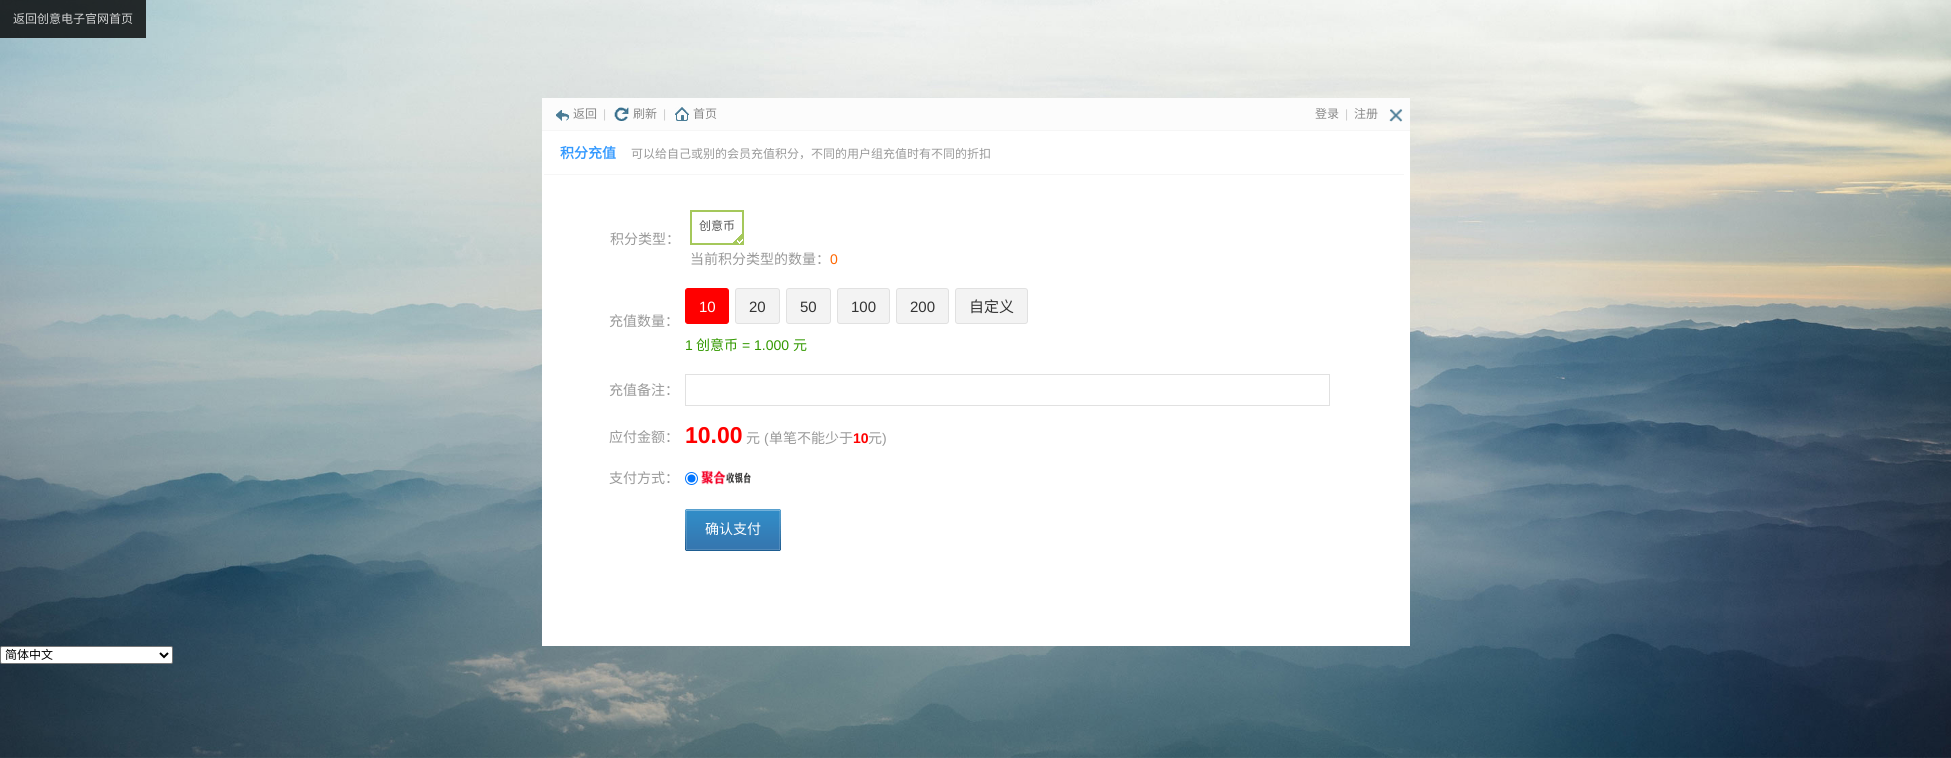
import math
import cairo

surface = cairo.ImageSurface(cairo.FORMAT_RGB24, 1951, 758)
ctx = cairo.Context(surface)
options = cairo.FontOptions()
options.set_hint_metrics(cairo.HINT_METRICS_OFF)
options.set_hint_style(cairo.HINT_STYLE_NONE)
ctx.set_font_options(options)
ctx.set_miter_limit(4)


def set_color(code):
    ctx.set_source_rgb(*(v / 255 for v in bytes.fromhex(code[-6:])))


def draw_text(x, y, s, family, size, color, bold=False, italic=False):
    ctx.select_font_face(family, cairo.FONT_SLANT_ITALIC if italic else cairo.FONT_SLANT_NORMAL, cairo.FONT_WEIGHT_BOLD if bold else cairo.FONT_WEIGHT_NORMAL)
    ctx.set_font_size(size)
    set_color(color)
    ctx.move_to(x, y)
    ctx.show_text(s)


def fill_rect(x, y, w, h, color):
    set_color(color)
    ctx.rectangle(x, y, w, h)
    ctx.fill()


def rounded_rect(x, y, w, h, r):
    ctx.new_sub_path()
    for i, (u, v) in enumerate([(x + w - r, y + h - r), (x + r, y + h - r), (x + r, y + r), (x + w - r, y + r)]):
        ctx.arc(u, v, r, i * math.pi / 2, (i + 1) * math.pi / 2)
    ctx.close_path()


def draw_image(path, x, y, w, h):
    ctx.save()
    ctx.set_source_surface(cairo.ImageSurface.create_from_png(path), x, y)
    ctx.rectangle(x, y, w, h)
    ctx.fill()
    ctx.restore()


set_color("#ffffff")
ctx.paint()
draw_image("assets/img1.png", 0, 0, 1951, 758)
ctx.set_source_rgba(0, 0, 0, 0.8)
ctx.rectangle(0, 0, 146, 38)
ctx.fill()
draw_text(13, 23, "返回创意电子官网首页", "Noto Sans CJK SC", 12, "#d3d4d4")
fill_rect(542, 98, 868, 32, "#fcfcfc")
fill_rect(542, 130, 868, 1, "#f6f6f6")
draw_image("assets/img2.png", 556, 110, 14, 11)
draw_text(573, 118, "返回", "Noto Sans CJK SC", 12, "#888888")
draw_text(603, 118, "|", "Liberation Sans", 12, "#cccccc")
draw_image("assets/img3.png", 614, 107, 15, 14)
draw_text(633, 118, "刷新", "Noto Sans CJK SC", 12, "#888888")
draw_text(663, 118, "|", "Liberation Sans", 12, "#cccccc")
draw_image("assets/img4.png", 675, 107, 14, 14)
draw_text(693, 118, "首页", "Noto Sans CJK SC", 12, "#888888")
draw_text(1315, 118, "登录", "Noto Sans CJK SC", 12, "#888888")
draw_text(1345, 118, "|", "Liberation Sans", 12, "#cccccc")
draw_text(1354, 118, "注册", "Noto Sans CJK SC", 12, "#888888")
draw_image("assets/img5.png", 1389, 109, 14, 13)
fill_rect(542, 131, 868, 515, "#ffffff")
fill_rect(544, 174, 860, 1, "#f6f6f6")
draw_text(560, 158, "积分充值", "Noto Sans CJK SC", 14, "#3399ff", bold=True)
draw_text(631, 158, "可以给自己或别的会员充值积分，不同的用户组充值时有不同的折扣", "Noto Sans CJK SC", 12, "#999999")
draw_text(610, 244, "积分类型：", "Noto Sans CJK SC", 14, "#999999")
ctx.rectangle(690.5, 210.5, 53, 34)
set_color("#a5c85b")
ctx.set_line_width(1)
ctx.stroke()
ctx.rectangle(691.5, 211.5, 51, 32)
ctx.stroke()
draw_text(699, 230, "创意币", "Noto Sans CJK SC", 12, "#565656")
draw_image("assets/img6.png", 733, 234, 10, 10)
draw_text(690, 264, "当前积分类型的数量：", "Noto Sans CJK SC", 14, "#999999")
draw_text(830, 264, "0", "Liberation Sans", 14, "#ff6600")
draw_text(609, 326, "充值数量：", "Noto Sans CJK SC", 14, "#999999")
set_color("#ff0000")
rounded_rect(685.5, 288.5, 43, 35, 2.5)
ctx.fill_preserve()
ctx.stroke()
draw_text(699, 312, "10", "Liberation Sans", 15, "#ffffff")
set_color("#f3f3f3")
rounded_rect(735.5, 288.5, 44, 35, 2.5)
ctx.fill_preserve()
set_color("#e1e1e1")
ctx.stroke()
draw_text(749, 312, "20", "Liberation Sans", 15, "#333333")
set_color("#f3f3f3")
rounded_rect(786.5, 288.5, 44, 35, 2.5)
ctx.fill_preserve()
set_color("#e1e1e1")
ctx.stroke()
draw_text(800, 312, "50", "Liberation Sans", 15, "#333333")
set_color("#f3f3f3")
rounded_rect(837.5, 288.5, 52, 35, 2.5)
ctx.fill_preserve()
set_color("#e1e1e1")
ctx.stroke()
draw_text(851, 312, "100", "Liberation Sans", 15, "#333333")
set_color("#f3f3f3")
rounded_rect(896.5, 288.5, 52, 35, 2.5)
ctx.fill_preserve()
set_color("#e1e1e1")
ctx.stroke()
draw_text(910, 312, "200", "Liberation Sans", 15, "#333333")
set_color("#f3f3f3")
rounded_rect(955.5, 288.5, 72, 35, 2.5)
ctx.fill_preserve()
set_color("#e1e1e1")
ctx.stroke()
draw_text(969, 312, "自定义", "Noto Sans CJK SC", 15, "#333333")
draw_text(685, 350, "1", "Liberation Sans", 14, "#339900")
draw_text(696, 350, "创意币", "Noto Sans CJK SC", 14, "#339900")
draw_text(742, 350, "= 1.000", "Liberation Sans", 14, "#339900")
draw_text(793, 350, "元", "Noto Sans CJK SC", 14, "#339900")
draw_text(609, 395, "充值备注：", "Noto Sans CJK SC", 14, "#999999")
ctx.rectangle(685.5, 374.5, 644, 31)
set_color("#e1e1e1")
ctx.stroke()
draw_text(609, 442, "应付金额：", "Noto Sans CJK SC", 14, "#999999")
draw_text(685, 443, "10.00", "Liberation Sans", 23, "#ff0000", bold=True)
draw_text(746, 443, "元", "Noto Sans CJK SC", 14, "#999999")
draw_text(764, 443, "(", "Liberation Sans", 14, "#999999")
draw_text(769, 443, "单笔不能少于", "Noto Sans CJK SC", 14, "#999999")
draw_text(853, 443, "10", "Liberation Sans", 14, "#ff0000", bold=True)
draw_text(868, 443, "元", "Noto Sans CJK SC", 14, "#999999")
draw_text(882, 443, ")", "Liberation Sans", 14, "#999999")
draw_text(609, 483, "支付方式：", "Noto Sans CJK SC", 14, "#999999")
ctx.new_path()
ctx.arc(691.5, 478.5, 6, 0, 2 * math.pi)
set_color("#0075ff")
ctx.stroke()
ctx.arc(691.5, 478.5, 4, 0, 2 * math.pi)
ctx.fill()
draw_image("assets/img7.png", 701, 470, 50, 15)
draw_image("assets/img8.png", 685, 509, 96, 42)
draw_text(705, 534, "确认支付", "Noto Sans CJK SC", 14, "#ffffff")
rounded_rect(0.5, 646.5, 172, 17, 1.5)
ctx.fill_preserve()
set_color("#767676")
ctx.stroke()
ctx.new_path()
ctx.move_to(160, 653)
ctx.line_to(164, 657)
ctx.line_to(168, 653)
set_color("#000000")
ctx.set_line_width(2)
ctx.stroke()
draw_text(5, 659, "简体中文", "Noto Sans CJK SC", 12, "#000000")
surface.write_to_png("output.png")
